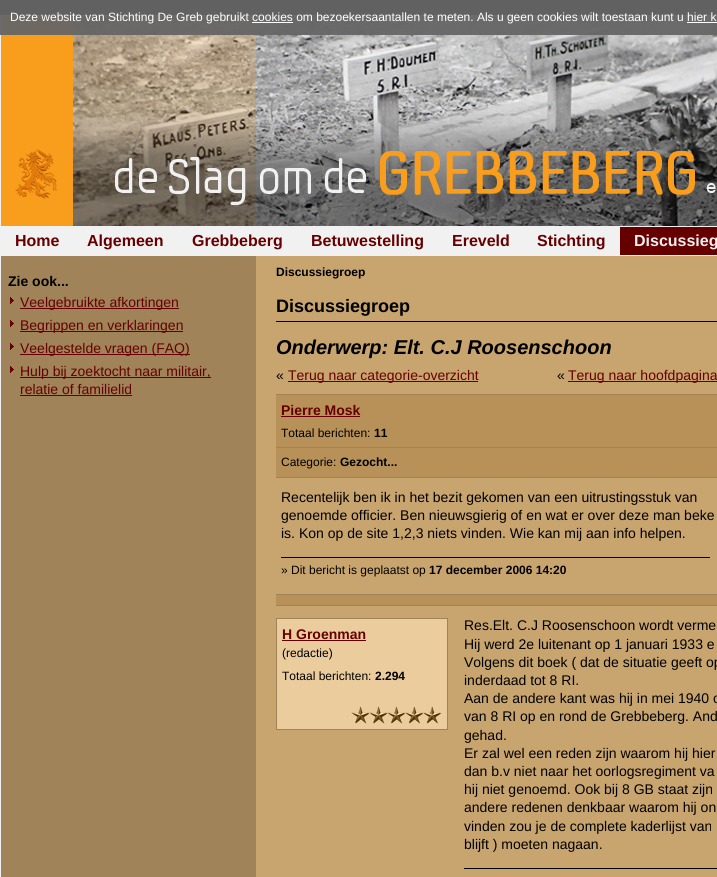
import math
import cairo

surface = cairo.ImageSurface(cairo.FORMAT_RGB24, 717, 877)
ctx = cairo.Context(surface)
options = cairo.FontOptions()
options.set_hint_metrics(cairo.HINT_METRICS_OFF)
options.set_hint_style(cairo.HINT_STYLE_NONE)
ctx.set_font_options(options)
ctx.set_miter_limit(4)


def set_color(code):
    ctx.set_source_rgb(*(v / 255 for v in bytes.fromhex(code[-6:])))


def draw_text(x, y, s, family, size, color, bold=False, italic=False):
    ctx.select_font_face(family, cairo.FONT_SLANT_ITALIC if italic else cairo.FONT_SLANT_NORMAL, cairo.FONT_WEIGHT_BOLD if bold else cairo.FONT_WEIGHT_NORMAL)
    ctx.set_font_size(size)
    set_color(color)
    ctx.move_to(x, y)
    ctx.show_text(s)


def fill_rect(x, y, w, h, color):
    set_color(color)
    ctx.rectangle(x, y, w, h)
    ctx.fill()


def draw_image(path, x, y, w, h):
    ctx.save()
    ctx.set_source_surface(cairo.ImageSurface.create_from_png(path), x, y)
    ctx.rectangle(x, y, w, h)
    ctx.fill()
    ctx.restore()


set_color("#000000")
ctx.paint()
fill_rect(1, 256, 255, 621, "#a08358")
ctx.rectangle(0.5, 15.5, 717, 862)
set_color("#f1f1f1")
ctx.set_line_width(1)
ctx.stroke()
draw_image("assets/img1.png", 73, 16, 644, 210)
draw_image("assets/img2.png", 1, 16, 716, 210)
ctx.set_source_rgba(0.4, 0.4, 0.4, 0.95)
ctx.rectangle(0, 0, 717, 35)
ctx.fill()
draw_text(10, 21, "Deze website van Stichting De Greb gebruikt cookies om bezoekersaantallen te meten. Als u geen cookies wilt toestaan kunt u hier k", "Liberation Sans", 12, "#ffffff")
fill_rect(252, 22, 41, 1, "#ffffff")
fill_rect(687, 22, 30, 1, "#ffffff")
fill_rect(1, 226, 716, 30, "#f1f1f1")
draw_text(15, 246, "Home", "Liberation Sans", 16, "#660000", bold=True)
draw_text(87, 246, "Algemeen", "Liberation Sans", 16, "#660000", bold=True)
draw_text(192, 246, "Grebbeberg", "Liberation Sans", 16, "#660000", bold=True)
draw_text(311, 246, "Betuwestelling", "Liberation Sans", 16, "#660000", bold=True)
draw_text(452, 246, "Ereveld", "Liberation Sans", 16, "#660000", bold=True)
draw_text(537, 246, "Stichting", "Liberation Sans", 16, "#660000", bold=True)
fill_rect(620, 227, 97, 28, "#660000")
draw_text(634, 246, "Discussieg", "Liberation Sans", 16, "#f1f1f1", bold=True)
draw_text(8, 286, "Zie ook...", "Liberation Sans", 14, "#000000", bold=True)
draw_image("assets/img3.png", 10, 297, 4, 7)
fill_rect(20, 308, 159, 1, "#660000")
draw_text(20, 307, "Veelgebruikte afkortingen", "Liberation Sans", 14, "#660000")
draw_image("assets/img3.png", 10, 320, 4, 7)
fill_rect(20, 331, 163, 1, "#660000")
draw_text(20, 330, "Begrippen en verklaringen", "Liberation Sans", 14, "#660000")
draw_image("assets/img3.png", 10, 343, 4, 7)
fill_rect(20, 354, 170, 1, "#660000")
draw_text(20, 353, "Veelgestelde vragen (FAQ)", "Liberation Sans", 14, "#660000")
draw_image("assets/img3.png", 10, 366, 4, 7)
fill_rect(20, 377, 191, 1, "#660000")
draw_text(20, 376, "Hulp bij zoektocht naar militair,", "Liberation Sans", 14, "#660000")
draw_text(20, 394, "relatie of familielid", "Liberation Sans", 14, "#660000")
fill_rect(20, 395, 112, 1, "#660000")
fill_rect(256, 256, 461, 621, "#c8a46e")
draw_text(276, 276, "Discussiegroep", "Liberation Sans", 12, "#000000", bold=True)
fill_rect(276, 321, 441, 1, "#000000")
draw_text(276, 312, "Discussiegroep", "Liberation Sans", 18, "#000000", bold=True)
draw_text(276, 354, "Onderwerp: Elt. C.J Roosenschoon", "Liberation Sans", 20, "#000000", bold=True, italic=True)
draw_text(276, 380, "«", "Liberation Sans", 14, "#000000")
fill_rect(288, 381, 190, 1, "#660000")
draw_text(288, 380, "Terug naar categorie-overzicht", "Liberation Sans", 14, "#660000")
draw_text(557, 380, "«", "Liberation Sans", 14, "#000000")
fill_rect(568, 381, 149, 1, "#660000")
draw_text(568, 380, "Terug naar hoofdpagina", "Liberation Sans", 14, "#660000")
fill_rect(276, 395, 441, 52, "#b79157")
fill_rect(276, 394, 441, 1, "#a08358")
draw_text(281, 415, "Pierre Mosk", "Liberation Sans", 14, "#660000", bold=True)
fill_rect(281, 416, 79, 1, "#660000")
draw_text(281, 437, "Totaal berichten:", "Liberation Sans", 12, "#000000")
draw_text(374, 437, "11", "Liberation Sans", 12, "#000000", bold=True)
fill_rect(276, 448, 441, 29, "#b79157")
fill_rect(276, 447, 441, 1, "#a08358")
draw_text(281, 466, "Categorie:", "Liberation Sans", 12, "#000000")
draw_text(340, 466, "Gezocht...", "Liberation Sans", 12, "#000000", bold=True)
fill_rect(276, 477, 441, 1, "#a08358")
fill_rect(276, 594, 441, 1, "#a08358")
draw_text(281, 502, "Recentelijk ben ik in het bezit gekomen van een uitrustingsstuk van", "Liberation Sans", 14, "#000000")
draw_text(281, 520, "genoemde officier. Ben nieuwsgierig of en wat er over deze man beke", "Liberation Sans", 14, "#000000")
draw_text(281, 538, "is. Kon op de site 1,2,3 niets vinden. Wie kan mij aan info helpen.", "Liberation Sans", 14, "#000000")
fill_rect(281, 557, 429, 1, "#000000")
draw_text(281, 574, "» Dit bericht is geplaatst op", "Liberation Sans", 12, "#000000")
draw_text(429, 574, "17 december 2006 14:20", "Liberation Sans", 12, "#000000", bold=True)
fill_rect(276, 595, 441, 10, "#b79157")
fill_rect(276, 605, 441, 1, "#a08358")
fill_rect(277, 619, 170, 110, "#ebcc9d")
draw_image("assets/img4.png", 351, 706, 91, 18)
ctx.rectangle(276.5, 618.5, 171, 111)
set_color("#a08358")
ctx.stroke()
draw_text(282, 639, "H Groenman", "Liberation Sans", 14, "#660000", bold=True)
fill_rect(282, 640, 84, 1, "#660000")
draw_text(282, 657, "(redactie)", "Liberation Sans", 12, "#000000")
draw_text(282, 680, "Totaal berichten:", "Liberation Sans", 12, "#000000")
draw_text(375, 680, "2.294", "Liberation Sans", 12, "#000000", bold=True)
draw_text(464, 630, "Res.Elt. C.J Roosenschoon wordt verme", "Liberation Sans", 14, "#000000")
draw_text(464, 649, "Hij werd 2e luitenant op 1 januari 1933 e", "Liberation Sans", 14, "#000000")
draw_text(464, 667, "Volgens dit boek ( dat de situatie geeft op", "Liberation Sans", 14, "#000000")
draw_text(464, 685, "inderdaad tot 8 RI.", "Liberation Sans", 14, "#000000")
draw_text(464, 703, "Aan de andere kant was hij in mei 1940 o", "Liberation Sans", 14, "#000000")
draw_text(464, 721, "van 8 RI op en rond de Grebbeberg. And", "Liberation Sans", 14, "#000000")
draw_text(464, 740, "gehad.", "Liberation Sans", 14, "#000000")
draw_text(464, 758, "Er zal wel een reden zijn waarom hij hier", "Liberation Sans", 14, "#000000")
draw_text(464, 776, "dan b.v niet naar het oorlogsregiment va", "Liberation Sans", 14, "#000000")
draw_text(464, 794, "hij niet genoemd. Ook bij 8 GB staat zijn", "Liberation Sans", 14, "#000000")
draw_text(464, 812, "andere redenen denkbaar waarom hij on", "Liberation Sans", 14, "#000000")
draw_text(464, 831, "vinden zou je de complete kaderlijst van", "Liberation Sans", 14, "#000000")
draw_text(464, 849, "blijft ) moeten nagaan.", "Liberation Sans", 14, "#000000")
fill_rect(464, 868, 253, 1, "#000000")
surface.write_to_png("output.png")
